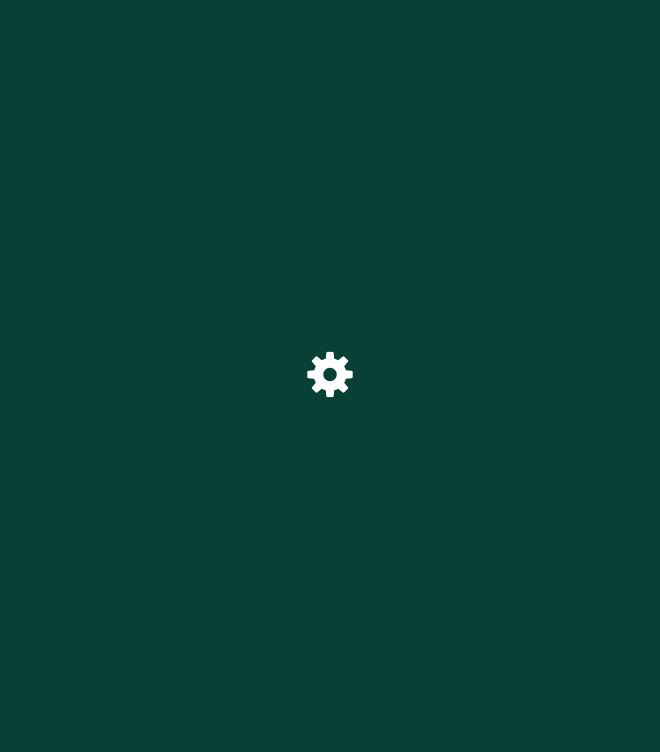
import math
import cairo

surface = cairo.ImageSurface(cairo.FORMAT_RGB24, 660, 752)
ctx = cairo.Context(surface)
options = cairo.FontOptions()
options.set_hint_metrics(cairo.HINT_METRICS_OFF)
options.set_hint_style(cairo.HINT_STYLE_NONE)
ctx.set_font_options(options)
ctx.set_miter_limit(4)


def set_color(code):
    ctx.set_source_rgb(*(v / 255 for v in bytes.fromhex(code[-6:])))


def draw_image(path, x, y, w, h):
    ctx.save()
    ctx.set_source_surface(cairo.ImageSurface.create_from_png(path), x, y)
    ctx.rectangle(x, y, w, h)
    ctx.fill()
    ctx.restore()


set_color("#084035")
ctx.paint()
draw_image("assets/img1.png", 307, 351, 46, 47)
surface.write_to_png("output.png")
